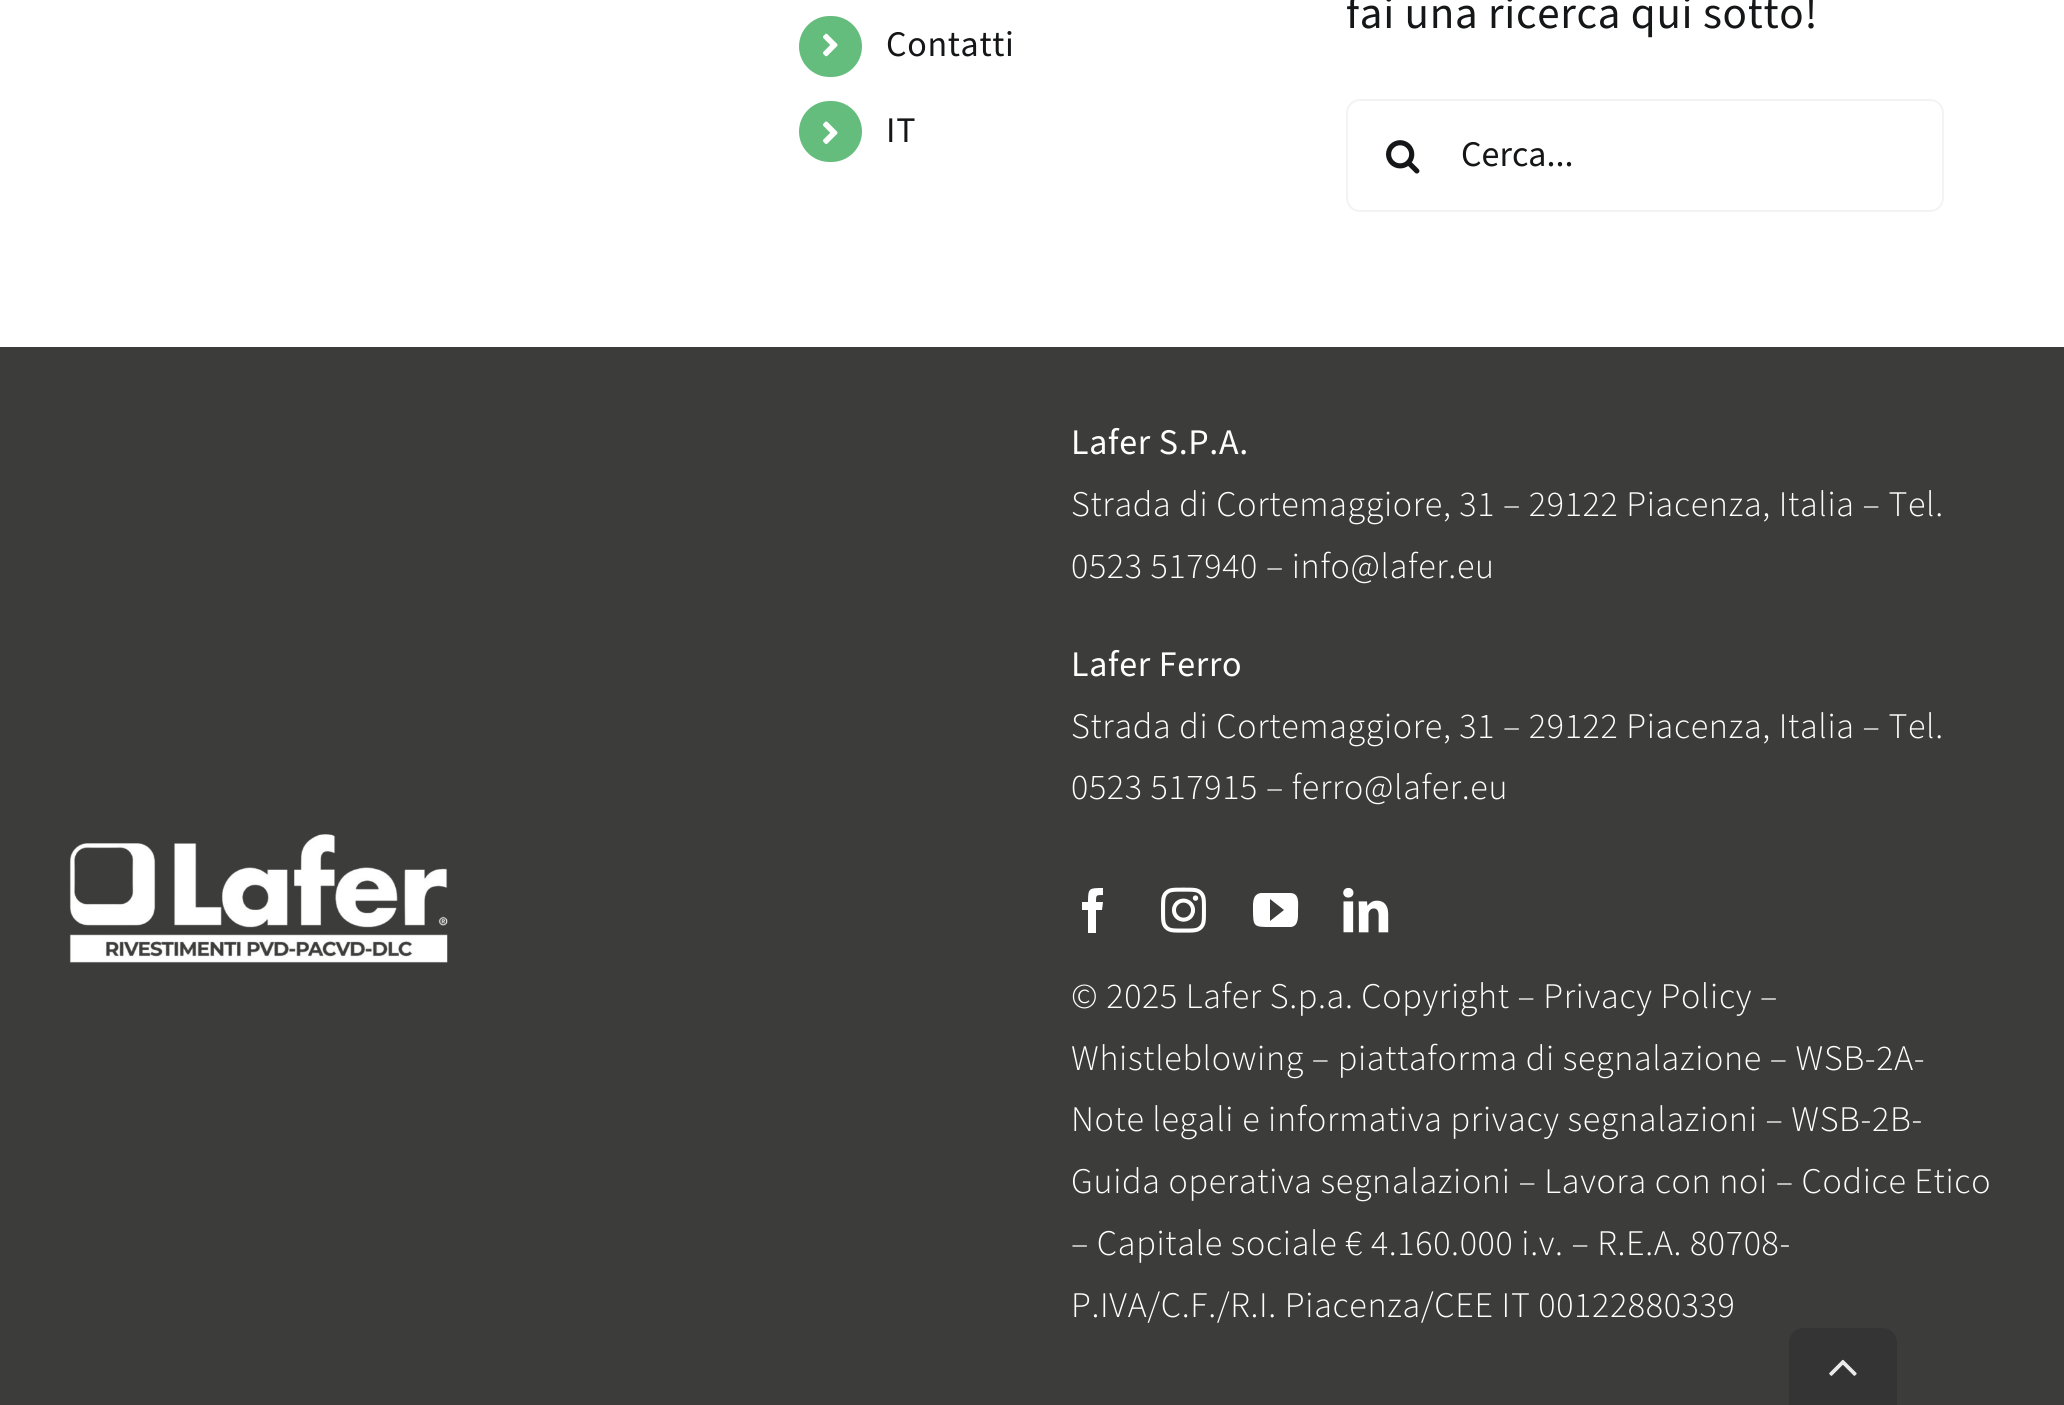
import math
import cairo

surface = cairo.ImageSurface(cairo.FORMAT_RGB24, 2064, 1405)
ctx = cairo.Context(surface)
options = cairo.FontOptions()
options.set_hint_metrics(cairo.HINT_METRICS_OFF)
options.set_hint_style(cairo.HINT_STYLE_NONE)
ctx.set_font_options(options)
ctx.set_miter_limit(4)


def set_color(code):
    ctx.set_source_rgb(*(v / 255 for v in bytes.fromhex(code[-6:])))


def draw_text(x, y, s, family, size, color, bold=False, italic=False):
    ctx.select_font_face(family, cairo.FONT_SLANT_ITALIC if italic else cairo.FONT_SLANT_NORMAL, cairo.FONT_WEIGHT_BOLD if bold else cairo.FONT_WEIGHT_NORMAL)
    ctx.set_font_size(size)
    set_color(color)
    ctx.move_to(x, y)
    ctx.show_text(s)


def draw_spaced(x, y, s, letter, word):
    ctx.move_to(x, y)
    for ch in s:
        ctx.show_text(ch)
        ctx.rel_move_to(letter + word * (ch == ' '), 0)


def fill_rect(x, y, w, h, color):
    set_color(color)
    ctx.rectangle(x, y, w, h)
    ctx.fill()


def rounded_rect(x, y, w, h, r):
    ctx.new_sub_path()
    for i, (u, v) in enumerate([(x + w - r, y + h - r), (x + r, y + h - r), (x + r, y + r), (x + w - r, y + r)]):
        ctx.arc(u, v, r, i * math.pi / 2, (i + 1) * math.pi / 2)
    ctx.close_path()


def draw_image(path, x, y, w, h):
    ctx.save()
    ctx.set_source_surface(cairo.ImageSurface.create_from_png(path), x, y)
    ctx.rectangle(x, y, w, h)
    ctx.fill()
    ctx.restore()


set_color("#ffffff")
ctx.paint()
set_color("#65bd7d")
rounded_rect(799, 16, 63, 61, 30.5)
ctx.fill()
draw_image("assets/img1.png", 823, 33, 15, 24)
ctx.select_font_face("Source Sans 3")
ctx.set_font_size(36)
set_color("#141617")
draw_spaced(886, 56, "Contatti", 0.67, 0)
set_color("#65bd7d")
rounded_rect(799, 101, 63, 61, 30.5)
ctx.fill()
draw_image("assets/img2.png", 823, 121, 15, 23)
set_color("#141617")
draw_spaced(886, 142, "IT", 0.67, 0)
ctx.set_font_size(45)
draw_spaced(1346, 28, "fai una ricerca qui sotto!", 0.67, 0)
rounded_rect(1347, 100, 596, 111, 13)
set_color("#f2f3f5")
ctx.stroke()
draw_image("assets/img3.png", 1386, 140, 34, 34)
draw_text(1461, 166, "Cerca...", "Source Sans 3", 36, "#141617")
fill_rect(0, 347, 2064, 1058, "#3c3c3b")
draw_image("assets/img4.png", 69, 834, 379, 129)
set_color("#ffffff")
draw_spaced(1071, 454, "Lafer S.P.A.", 0.67, 0)
ctx.select_font_face("Source Sans 3 Light")
draw_spaced(1071, 516, "Strada di Cortemaggiore, 31 – 29122 Piacenza, Italia – Tel.", 0.67, 0)
draw_spaced(1071, 578, "0523 517940 – info@lafer.eu", 0.67, 0)
ctx.select_font_face("Source Sans 3")
draw_spaced(1071, 676, "Lafer Ferro", 0.67, 0)
ctx.select_font_face("Source Sans 3 Light")
draw_spaced(1071, 738, "Strada di Cortemaggiore, 31 – 29122 Piacenza, Italia – Tel.", 0.67, 0)
draw_spaced(1071, 799, "0523 517915 – ferro@lafer.eu", 0.67, 0)
ctx.new_path()
ctx.move_to(1096, 933)
ctx.line_to(1088, 933)
ctx.line_to(1088, 910)
ctx.line_to(1082, 910)
ctx.line_to(1082, 902)
ctx.line_to(1088, 902)
ctx.curve_to(1088, 888, 1089, 888, 1103, 888)
ctx.line_to(1103, 895)
ctx.curve_to(1096, 895, 1096, 895, 1096, 902)
ctx.line_to(1103, 902)
ctx.line_to(1102, 910)
ctx.line_to(1096, 910)
ctx.close_path()
ctx.fill()
draw_image("assets/img5.png", 1161, 887, 45, 46)
ctx.new_path()
ctx.move_to(1290, 893)
ctx.line_to(1261, 893)
ctx.curve_to(1252, 894, 1253, 904, 1253, 910)
ctx.curve_to(1253, 927, 1254, 927, 1271, 927)
ctx.line_to(1291, 927)
ctx.curve_to(1299, 926, 1298, 916, 1298, 910)
ctx.curve_to(1298, 904, 1300, 893, 1290, 893)
ctx.close_path()
ctx.move_to(1270, 921)
ctx.line_to(1270, 899)
ctx.line_to(1284, 910)
ctx.close_path()
ctx.fill()
draw_image("assets/img6.png", 1343, 887, 46, 46)
draw_spaced(1071, 1008, "© 2025 Lafer S.p.a. Copyright – Privacy Policy –", 0.67, 0)
draw_spaced(1071, 1070, "Whistleblowing – piattaforma di segnalazione – WSB-2A-", 0.67, 0)
draw_spaced(1071, 1131, "Note legali e informativa privacy segnalazioni – WSB-2B-", 0.67, 0)
draw_spaced(1071, 1193, "Guida operativa segnalazioni – Lavora con noi – Codice Etico", 0.67, 0)
draw_spaced(1071, 1255, "– Capitale sociale € 4.160.000 i.v. – R.E.A. 80708-", 0.67, 0)
draw_spaced(1071, 1317, "P.IVA/C.F./R.I. Piacenza/CEE IT 00122880339", 0.67, 0)
set_color("#343434")
ctx.new_path()
ctx.move_to(1803, 1328)
ctx.line_to(1883, 1328)
ctx.curve_to(1890.5, 1328, 1897, 1334.5, 1897, 1342)
ctx.line_to(1897, 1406)
ctx.line_to(1789, 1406)
ctx.line_to(1789, 1342)
ctx.curve_to(1789, 1334.5, 1795.5, 1328, 1803, 1328)
ctx.close_path()
ctx.fill()
draw_image("assets/img7.png", 1829, 1359, 28, 17)
surface.write_to_png("output.png")
